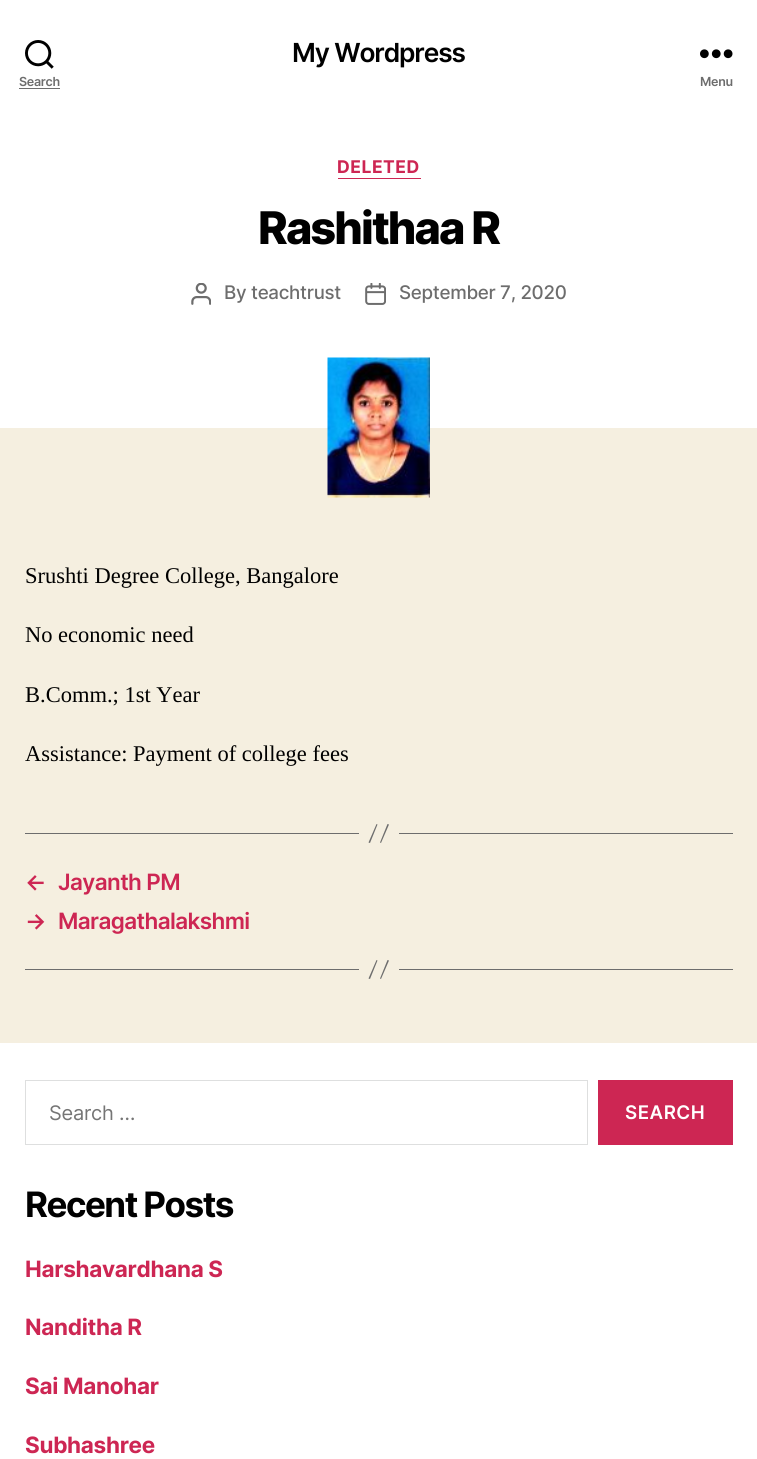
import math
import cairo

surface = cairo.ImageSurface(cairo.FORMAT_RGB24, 757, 1459)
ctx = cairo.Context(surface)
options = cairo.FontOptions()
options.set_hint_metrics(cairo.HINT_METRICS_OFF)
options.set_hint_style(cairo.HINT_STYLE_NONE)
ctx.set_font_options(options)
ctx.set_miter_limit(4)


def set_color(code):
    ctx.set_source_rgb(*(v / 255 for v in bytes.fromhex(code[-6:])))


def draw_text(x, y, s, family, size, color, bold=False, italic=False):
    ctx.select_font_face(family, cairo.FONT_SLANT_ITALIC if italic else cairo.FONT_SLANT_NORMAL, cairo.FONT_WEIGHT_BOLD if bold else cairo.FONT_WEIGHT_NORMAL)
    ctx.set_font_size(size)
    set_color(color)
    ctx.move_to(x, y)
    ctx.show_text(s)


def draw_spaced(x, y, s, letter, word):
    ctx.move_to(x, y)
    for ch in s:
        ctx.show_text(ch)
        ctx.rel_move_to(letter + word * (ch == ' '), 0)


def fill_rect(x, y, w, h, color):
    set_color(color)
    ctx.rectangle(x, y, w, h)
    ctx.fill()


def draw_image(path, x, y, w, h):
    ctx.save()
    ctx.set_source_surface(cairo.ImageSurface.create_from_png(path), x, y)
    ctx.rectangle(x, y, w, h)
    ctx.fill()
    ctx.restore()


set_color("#f5efe0")
ctx.paint()
fill_rect(0, 0, 757, 428, "#ffffff")
ctx.select_font_face("Inter SemiBold")
ctx.set_font_size(26.25)
set_color("#000000")
draw_spaced(292, 62, "My Wordpress", -1.1, 0)
draw_image("assets/img1.png", 25, 40, 29, 29)
ctx.set_font_size(12.5)
set_color("#6d6d6d")
draw_spaced(19, 86, "Search", -0.3, 0)
fill_rect(19, 88, 41, 1, "#6d6d6d")
draw_image("assets/img2.png", 700, 49, 33, 10)
draw_spaced(700, 86, "Menu", -0.3, 0)
fill_rect(338, 178, 83, 1, "#cd2653")
ctx.select_font_face("Inter", cairo.FONT_SLANT_NORMAL, cairo.FONT_WEIGHT_BOLD)
ctx.set_font_size(17.5)
draw_spaced(337, 173, "DELETED", 0.5, 0)
ctx.select_font_face("Inter ExtraBold")
ctx.set_font_size(45)
set_color("#000000")
draw_spaced(258, 244, "Rashithaa R", -1.9, 0)
draw_image("assets/img3.png", 191, 283, 20, 22)
ctx.select_font_face("Inter Medium")
ctx.set_font_size(18.75)
set_color("#6d6d6d")
draw_spaced(224, 299, "By teachtrust", -0.3, 0)
draw_image("assets/img4.png", 365, 283, 21, 22)
draw_spaced(399, 299, "September 7, 2020", -0.3, 0)
draw_image("assets/img5.png", 327, 357, 103, 141)
draw_text(25, 583, "Srushti Degree College, Bangalore", "Liberation Serif", 22.5, "#000000")
draw_text(25, 642, "No economic need", "Liberation Serif", 22.5, "#000000")
draw_text(25, 702, "B.Comm.; 1st Year", "Liberation Serif", 22.5, "#000000")
draw_text(25, 761, "Assistance: Payment of college fees", "Liberation Serif", 22.5, "#000000")
fill_rect(399, 833, 334, 1, "#6d6d6d")
fill_rect(25, 833, 334, 1, "#6d6d6d")
ctx.new_path()
ctx.move_to(376.5, 824)
ctx.line_to(377.5, 824.5)
ctx.line_to(370, 843)
ctx.line_to(368.5, 842.5)
ctx.close_path()
ctx.move_to(387.5, 824)
ctx.line_to(389, 824.5)
ctx.line_to(381, 843)
ctx.line_to(380, 842.5)
ctx.close_path()
ctx.fill()
ctx.select_font_face("Inter SemiBold")
set_color("#cd2653")
draw_spaced(25, 890, "←", -0.6, 0)
draw_spaced(58, 890, "Jayanth PM", -0.6, 0)
draw_spaced(25, 929, "→", -0.6, 0)
draw_spaced(58, 929, "Maragathalakshmi", -0.6, 0)
fill_rect(399, 969, 334, 1, "#6d6d6d")
fill_rect(25, 969, 334, 1, "#6d6d6d")
ctx.new_path()
ctx.move_to(376.5, 960)
ctx.line_to(377.5, 960.5)
ctx.line_to(370, 979)
ctx.line_to(368.5, 978.5)
ctx.close_path()
ctx.move_to(387.5, 960)
ctx.line_to(389, 960.5)
ctx.line_to(381, 979)
ctx.line_to(380, 978.5)
ctx.close_path()
ctx.fill()
fill_rect(0, 1043, 757, 416, "#ffffff")
ctx.rectangle(25.5, 1080.5, 562, 64)
set_color("#dedfdf")
ctx.set_line_width(1)
ctx.stroke()
ctx.select_font_face("Inter")
ctx.set_font_size(20)
set_color("#757575")
draw_spaced(49, 1120, "Search …", -0.25, 0)
fill_rect(598, 1080, 135, 65, "#cd2653")
ctx.select_font_face("Inter SemiBold")
ctx.set_font_size(18.75)
set_color("#ffffff")
draw_spaced(625, 1119, "SEARCH", 0.5, 0)
ctx.select_font_face("Inter", cairo.FONT_SLANT_NORMAL, cairo.FONT_WEIGHT_BOLD)
ctx.set_font_size(35)
set_color("#000000")
draw_spaced(25, 1217, "Recent Posts", -1.5, 0)
ctx.set_font_size(22.5)
set_color("#cd2653")
draw_spaced(25, 1277, "Harshavardhana S", -0.3, 0)
draw_spaced(25, 1335, "Nanditha R", -0.3, 0)
draw_spaced(25, 1394, "Sai Manohar", -0.3, 0)
draw_spaced(25, 1453, "Subhashree", -0.3, 0)
surface.write_to_png("output.png")
